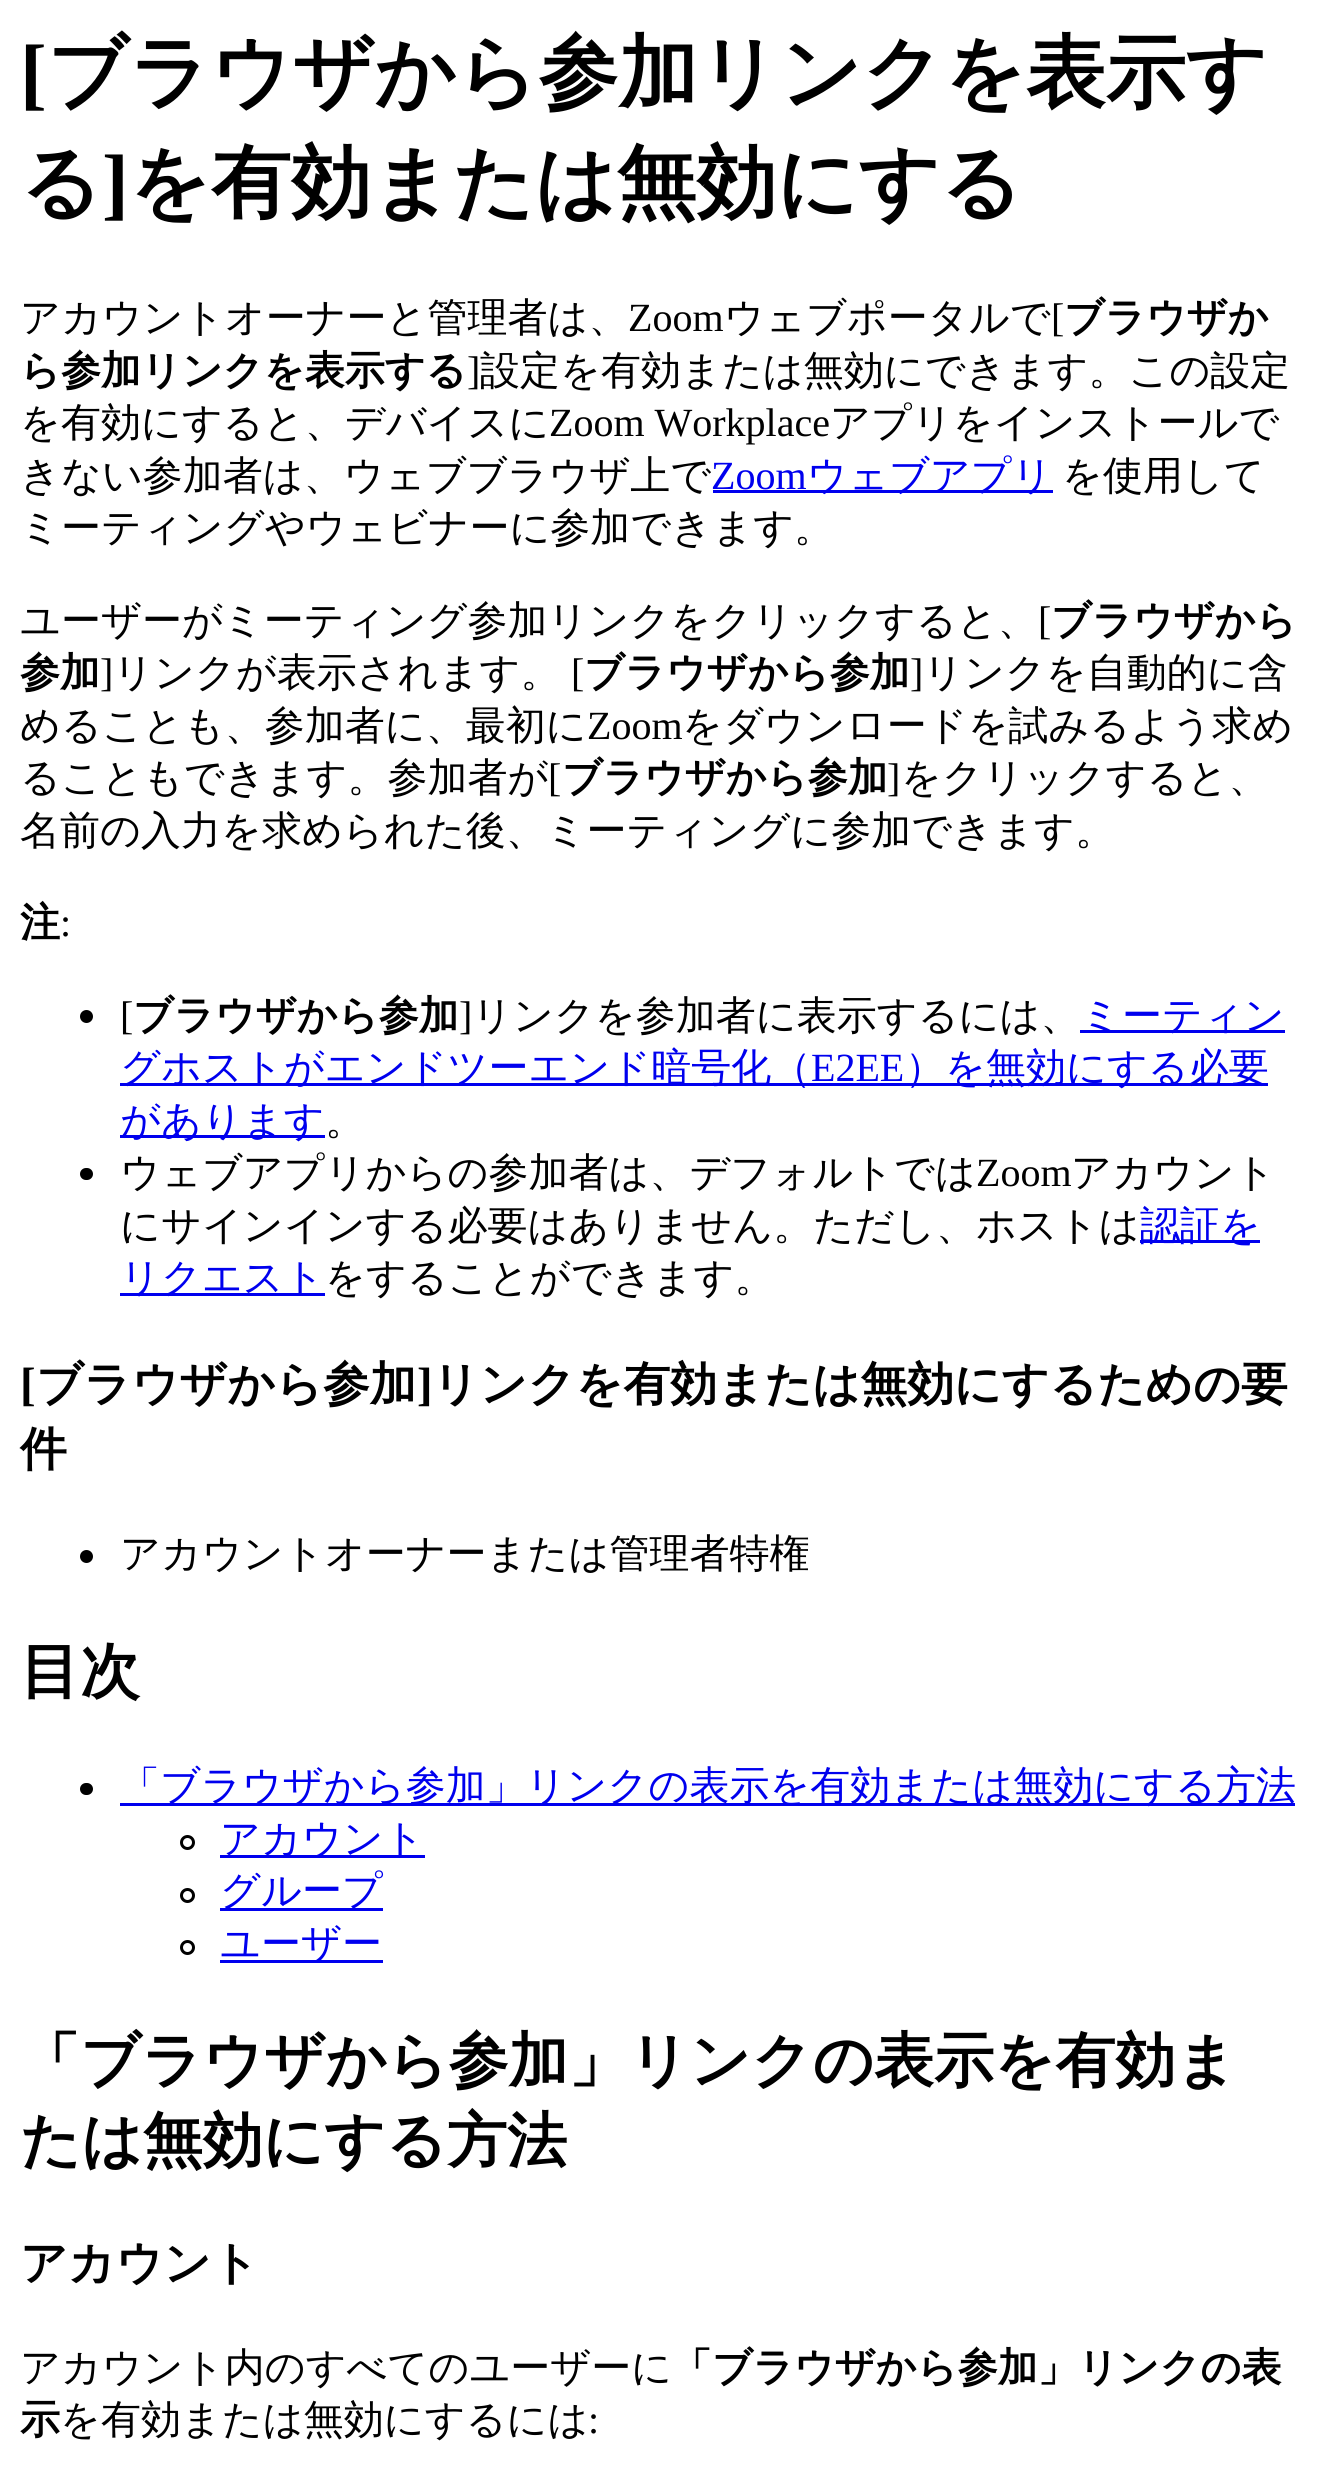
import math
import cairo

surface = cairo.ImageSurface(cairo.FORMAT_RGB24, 1317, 2471)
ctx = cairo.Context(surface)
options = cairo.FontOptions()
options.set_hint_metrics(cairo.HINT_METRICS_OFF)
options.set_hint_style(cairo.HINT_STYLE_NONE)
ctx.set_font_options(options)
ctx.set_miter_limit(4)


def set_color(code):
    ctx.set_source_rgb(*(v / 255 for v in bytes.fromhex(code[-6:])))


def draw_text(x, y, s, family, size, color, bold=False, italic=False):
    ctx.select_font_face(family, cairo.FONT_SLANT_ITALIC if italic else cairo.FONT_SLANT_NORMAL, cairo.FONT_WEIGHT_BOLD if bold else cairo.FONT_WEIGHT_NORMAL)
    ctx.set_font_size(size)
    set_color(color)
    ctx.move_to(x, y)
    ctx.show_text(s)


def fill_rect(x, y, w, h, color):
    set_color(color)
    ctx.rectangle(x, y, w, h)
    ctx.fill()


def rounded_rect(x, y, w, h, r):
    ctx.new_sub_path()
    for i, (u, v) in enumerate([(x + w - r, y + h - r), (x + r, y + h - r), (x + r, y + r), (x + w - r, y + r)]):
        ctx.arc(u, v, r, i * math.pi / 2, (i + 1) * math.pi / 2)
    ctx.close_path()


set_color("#ffffff")
ctx.paint()
draw_text(20, 100, "[", "Liberation Serif", 80, "#000000", bold=True)
draw_text(47, 100, "ブラウザから参加リンクを表示す", "WenQuanYi Zen Hei", 80, "#000000", bold=True)
draw_text(20, 210, "る", "WenQuanYi Zen Hei", 80, "#000000", bold=True)
draw_text(102, 210, "]", "Liberation Serif", 80, "#000000", bold=True)
draw_text(129, 210, "を有効または無効にする", "WenQuanYi Zen Hei", 80, "#000000", bold=True)
draw_text(20, 331, "アカウントオーナーと管理者は、", "WenQuanYi Zen Hei Medium", 40, "#000000")
draw_text(628, 331, "Zoom", "Liberation Serif", 40, "#000000")
draw_text(724, 331, "ウェブポータルで", "WenQuanYi Zen Hei Medium", 40, "#000000")
draw_text(1051, 331, "[", "Liberation Serif", 40, "#000000")
draw_text(1064, 331, "ブラウザか", "WenQuanYi Zen Hei", 40, "#000000", bold=True)
draw_text(20, 384, "ら参加リンクを表示する", "WenQuanYi Zen Hei", 40, "#000000", bold=True)
draw_text(467, 384, "]", "Liberation Serif", 40, "#000000")
draw_text(480, 384, "設定を有効または無効にできます。この設定", "WenQuanYi Zen Hei Medium", 40, "#000000")
draw_text(20, 436, "を有効にすると、デバイスに", "WenQuanYi Zen Hei Medium", 40, "#000000")
draw_text(549, 436, "Zoom Workplace", "Liberation Serif", 40, "#000000")
draw_text(830, 436, "アプリをインストールで", "WenQuanYi Zen Hei Medium", 40, "#000000")
draw_text(20, 489, "きない参加者は、ウェブブラウザ上で", "WenQuanYi Zen Hei Medium", 40, "#000000")
draw_text(711, 489, "Zoom", "Liberation Serif", 40, "#0000ee")
fill_rect(713, 490, 340, 3, "#0000ee")
draw_text(807, 489, "ウェブアプリ", "WenQuanYi Zen Hei Medium", 40, "#0000ee")
draw_text(1062, 489, "を使用して", "WenQuanYi Zen Hei Medium", 40, "#000000")
draw_text(20, 541, "ミーティングやウェビナーに参加できます。", "WenQuanYi Zen Hei Medium", 40, "#000000")
draw_text(20, 634, "ユーザーがミーティング参加リンクをクリックすると、", "WenQuanYi Zen Hei Medium", 40, "#000000")
draw_text(1038, 634, "[", "Liberation Serif", 40, "#000000")
draw_text(1051, 634, "ブラウザから", "WenQuanYi Zen Hei", 40, "#000000", bold=True)
draw_text(20, 686, "参加", "WenQuanYi Zen Hei", 40, "#000000", bold=True)
draw_text(100, 686, "]", "Liberation Serif", 40, "#000000")
draw_text(113, 686, "リンクが表示されます。", "WenQuanYi Zen Hei Medium", 40, "#000000")
draw_text(571, 686, "[", "Liberation Serif", 40, "#000000")
draw_text(584, 686, "ブラウザから参加", "WenQuanYi Zen Hei", 40, "#000000", bold=True)
draw_text(910, 686, "]", "Liberation Serif", 40, "#000000")
draw_text(923, 686, "リンクを自動的に含", "WenQuanYi Zen Hei Medium", 40, "#000000")
draw_text(20, 739, "めることも、参加者に、最初に", "WenQuanYi Zen Hei Medium", 40, "#000000")
draw_text(587, 739, "Zoom", "Liberation Serif", 40, "#000000")
draw_text(682, 739, "をダウンロードを試みるよう求め", "WenQuanYi Zen Hei Medium", 40, "#000000")
draw_text(20, 791, "ることもできます。参加者が", "WenQuanYi Zen Hei Medium", 40, "#000000")
draw_text(548, 791, "[", "Liberation Serif", 40, "#000000")
draw_text(562, 791, "ブラウザから参加", "WenQuanYi Zen Hei", 40, "#000000", bold=True)
draw_text(887, 791, "]", "Liberation Serif", 40, "#000000")
draw_text(901, 791, "をクリックすると、", "WenQuanYi Zen Hei Medium", 40, "#000000")
draw_text(20, 844, "名前の入力を求められた後、ミーティングに参加できます。", "WenQuanYi Zen Hei Medium", 40, "#000000")
draw_text(20, 936, "注", "WenQuanYi Zen Hei", 40, "#000000", bold=True)
draw_text(60, 936, ":", "Liberation Serif", 40, "#000000")
ctx.new_path()
ctx.arc(86.5, 1016.5, 6.5, 0, 2 * math.pi)
ctx.fill()
draw_text(120, 1029, "[", "Liberation Serif", 40, "#000000")
draw_text(133, 1029, "ブラウザから参加", "WenQuanYi Zen Hei", 40, "#000000", bold=True)
draw_text(459, 1029, "]", "Liberation Serif", 40, "#000000")
draw_text(472, 1029, "リンクを参加者に表示するには、", "WenQuanYi Zen Hei Medium", 40, "#000000")
fill_rect(1080, 1030, 205, 3, "#0000ee")
draw_text(1081, 1029, "ミーティン", "WenQuanYi Zen Hei Medium", 40, "#0000ee")
fill_rect(120, 1083, 1148, 3, "#0000ee")
draw_text(120, 1081, "グホストがエンドツーエンド暗号化（", "WenQuanYi Zen Hei Medium", 40, "#0000ee")
draw_text(811, 1081, "E2EE", "Liberation Serif", 40, "#0000ee")
draw_text(905, 1081, "）を無効にする必要", "WenQuanYi Zen Hei Medium", 40, "#0000ee")
fill_rect(120, 1135, 205, 3, "#0000ee")
draw_text(120, 1134, "があります", "WenQuanYi Zen Hei Medium", 40, "#0000ee")
draw_text(325, 1134, "。", "WenQuanYi Zen Hei Medium", 40, "#000000")
rounded_rect(80, 1168, 13, 12, 6)
ctx.fill()
draw_text(120, 1186, "ウェブアプリからの参加者は、デフォルトでは", "WenQuanYi Zen Hei Medium", 40, "#000000")
draw_text(976, 1186, "Zoom", "Liberation Serif", 40, "#000000")
draw_text(1071, 1186, "アカウント", "WenQuanYi Zen Hei Medium", 40, "#000000")
draw_text(120, 1239, "にサインインする必要はありません。ただし、ホストは", "WenQuanYi Zen Hei Medium", 40, "#000000")
fill_rect(1140, 1240, 120, 3, "#0000ee")
draw_text(1140, 1239, "認証を", "WenQuanYi Zen Hei Medium", 40, "#0000ee")
fill_rect(120, 1293, 205, 3, "#0000ee")
draw_text(120, 1291, "リクエスト", "WenQuanYi Zen Hei Medium", 40, "#0000ee")
draw_text(325, 1291, "をすることができます。", "WenQuanYi Zen Hei Medium", 40, "#000000")
draw_text(20, 1400, "[", "Liberation Serif", 46.75, "#000000", bold=True)
draw_text(36, 1400, "ブラウザから参加", "WenQuanYi Zen Hei", 46.75, "#000000", bold=True)
draw_text(417, 1400, "]", "Liberation Serif", 46.75, "#000000", bold=True)
draw_text(432, 1400, "リンクを有効または無効にするための要", "WenQuanYi Zen Hei", 46.75, "#000000", bold=True)
draw_text(20, 1465, "件", "WenQuanYi Zen Hei", 46.75, "#000000", bold=True)
ctx.new_path()
ctx.arc(86.5, 1556.5, 6.5, 0, 2 * math.pi)
ctx.fill()
draw_text(120, 1567, "アカウントオーナーまたは管理者特権", "WenQuanYi Zen Hei Medium", 40, "#000000")
draw_text(20, 1692, "目次", "WenQuanYi Zen Hei", 60, "#000000", bold=True)
rounded_rect(80, 1783, 13, 12, 6)
ctx.fill()
fill_rect(120, 1803, 1175, 3, "#0000ee")
draw_text(120, 1799, "「ブラウザから参加」リンクの表示を有効または無効にする方法", "WenQuanYi Zen Hei Medium", 40, "#0000ee")
ctx.new_path()
ctx.arc(187.5, 1842.5, 6, 0, 2 * math.pi)
set_color("#000000")
ctx.set_line_width(3)
ctx.stroke()
fill_rect(220, 1855, 205, 3, "#0000ee")
draw_text(220, 1852, "アカウント", "WenQuanYi Zen Hei Medium", 40, "#0000ee")
ctx.new_path()
ctx.arc(187.5, 1895.5, 6, 0, 2 * math.pi)
set_color("#000000")
ctx.stroke()
fill_rect(220, 1908, 163, 3, "#0000ee")
draw_text(220, 1904, "グループ", "WenQuanYi Zen Hei Medium", 40, "#0000ee")
ctx.new_path()
ctx.arc(187.5, 1947.5, 6, 0, 2 * math.pi)
set_color("#000000")
ctx.stroke()
fill_rect(220, 1960, 163, 3, "#0000ee")
draw_text(220, 1957, "ユーザー", "WenQuanYi Zen Hei Medium", 40, "#0000ee")
draw_text(20, 2081, "「ブラウザから参加」リンクの表示を有効ま", "WenQuanYi Zen Hei", 60, "#000000", bold=True)
draw_text(20, 2161, "たは無効にする方法", "WenQuanYi Zen Hei", 60, "#000000", bold=True)
draw_text(20, 2279, "アカウント", "WenQuanYi Zen Hei", 46.75, "#000000", bold=True)
draw_text(20, 2381, "アカウント内のすべてのユーザーに", "WenQuanYi Zen Hei Medium", 40, "#000000")
draw_text(672, 2381, "「ブラウザから参加」リンクの表", "WenQuanYi Zen Hei", 40, "#000000", bold=True)
draw_text(20, 2433, "示", "WenQuanYi Zen Hei", 40, "#000000", bold=True)
draw_text(60, 2433, "を有効または無効にするには", "WenQuanYi Zen Hei Medium", 40, "#000000")
draw_text(588, 2433, ":", "Liberation Serif", 40, "#000000")
surface.write_to_png("output.png")
